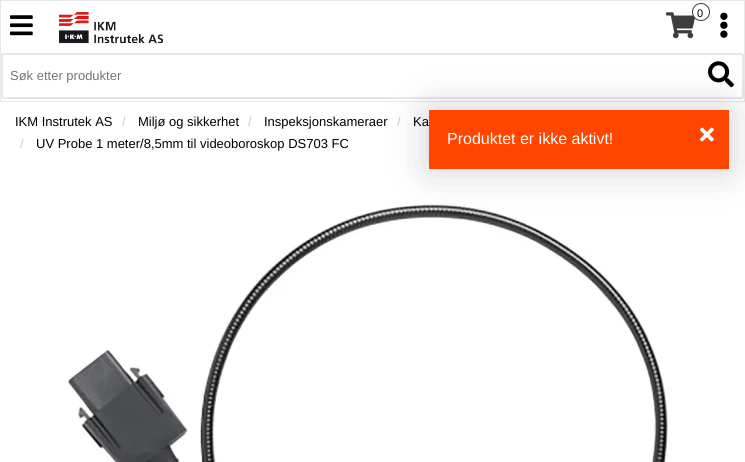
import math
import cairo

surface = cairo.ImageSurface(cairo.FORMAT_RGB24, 745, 462)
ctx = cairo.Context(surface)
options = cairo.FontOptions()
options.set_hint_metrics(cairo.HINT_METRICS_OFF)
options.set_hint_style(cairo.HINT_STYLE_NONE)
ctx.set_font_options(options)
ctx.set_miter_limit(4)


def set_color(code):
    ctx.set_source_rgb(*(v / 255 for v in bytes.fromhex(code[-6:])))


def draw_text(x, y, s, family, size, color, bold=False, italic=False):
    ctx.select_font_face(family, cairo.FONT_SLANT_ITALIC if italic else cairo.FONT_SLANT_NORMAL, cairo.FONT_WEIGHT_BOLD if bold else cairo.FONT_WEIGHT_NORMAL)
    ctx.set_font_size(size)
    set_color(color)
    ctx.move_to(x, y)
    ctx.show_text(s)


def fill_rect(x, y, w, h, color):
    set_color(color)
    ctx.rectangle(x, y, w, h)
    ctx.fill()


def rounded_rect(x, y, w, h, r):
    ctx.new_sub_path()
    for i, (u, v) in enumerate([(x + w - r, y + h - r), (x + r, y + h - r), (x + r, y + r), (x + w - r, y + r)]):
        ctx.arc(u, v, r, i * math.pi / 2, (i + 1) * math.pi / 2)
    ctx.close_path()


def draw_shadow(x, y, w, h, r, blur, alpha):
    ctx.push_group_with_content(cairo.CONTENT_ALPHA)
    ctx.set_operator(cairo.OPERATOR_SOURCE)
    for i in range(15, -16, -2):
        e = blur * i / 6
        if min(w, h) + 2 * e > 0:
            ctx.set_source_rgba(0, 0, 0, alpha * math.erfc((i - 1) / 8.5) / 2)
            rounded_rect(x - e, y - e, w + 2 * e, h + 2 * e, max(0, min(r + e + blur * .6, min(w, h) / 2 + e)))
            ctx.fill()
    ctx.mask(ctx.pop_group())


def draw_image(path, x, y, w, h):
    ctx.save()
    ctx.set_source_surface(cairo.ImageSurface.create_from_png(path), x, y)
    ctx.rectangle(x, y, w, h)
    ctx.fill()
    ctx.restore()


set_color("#ffffff")
ctx.paint()
ctx.rectangle(0.5, 0.5, 744, 101)
set_color("#e7e7e7")
ctx.set_line_width(1)
ctx.stroke()
draw_image("assets/img1.png", 10, 15, 23, 21)
draw_image("assets/img2.png", 59, 12, 105, 32)
draw_image("assets/img3.png", 666, 12, 29, 27)
set_color("#ffffff")
ctx.arc(701, 12, 8.5, 0, 2 * math.pi)
ctx.fill_preserve()
set_color("#3d3d3d")
ctx.stroke()
draw_text(697, 17, "0", "Liberation Sans", 11, "#000000")
draw_image("assets/img4.png", 720, 12, 8, 26)
rounded_rect(2, 54, 741, 44, 1)
set_color("#e6e7e8")
ctx.set_line_width(2)
ctx.stroke()
draw_text(10, 80, "Søk etter produkter", "Liberation Sans", 13, "#757575")
draw_image("assets/img5.png", 708, 61, 26, 27)
draw_text(15, 126, "IKM Instrutek AS", "Liberation Sans", 13, "#000000")
draw_text(122, 126, "/", "Liberation Sans", 13, "#cccccc")
draw_text(138, 126, "Miljø og sikkerhet", "Liberation Sans", 13, "#000000")
draw_text(248, 126, "/", "Liberation Sans", 13, "#cccccc")
draw_text(264, 126, "Inspeksjonskameraer", "Liberation Sans", 13, "#000000")
draw_text(397, 126, "/", "Liberation Sans", 13, "#cccccc")
draw_text(413, 126, "Ka", "Liberation Sans", 13, "#000000")
draw_text(20, 148, "/", "Liberation Sans", 13, "#cccccc")
draw_text(36, 148, "UV Probe 1 meter/8,5mm til videoboroskop DS703 FC", "Liberation Sans", 13, "#000000")
draw_image("assets/img6.png", 68, 202, 600, 260)
set_color("#000000")
draw_shadow(429, 110, 300, 59, 2, 20, 0.2)
fill_rect(429, 110, 300, 59, "#ff4500")
draw_text(447, 144, "Produktet er ikke aktivt!", "Liberation Sans", 16, "#ffffff")
draw_image("assets/img7.png", 700, 127, 14, 15)
surface.write_to_png("output.png")
